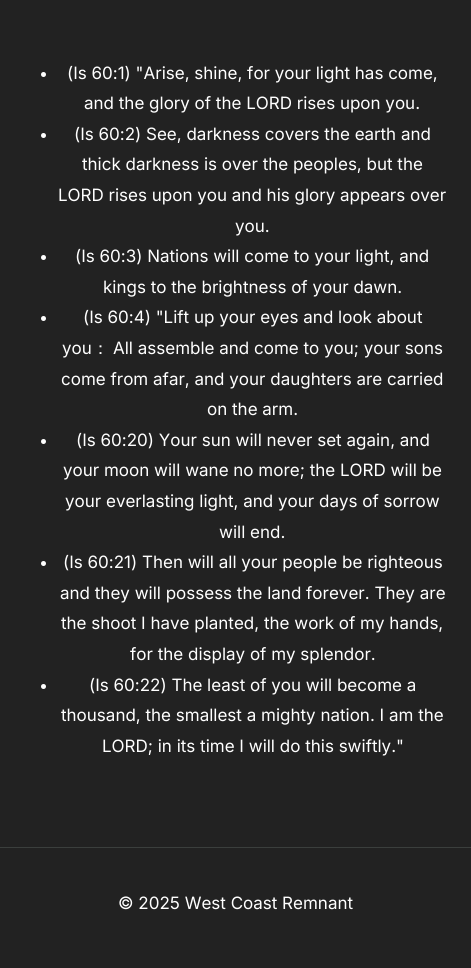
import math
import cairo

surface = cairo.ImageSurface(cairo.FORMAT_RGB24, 471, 968)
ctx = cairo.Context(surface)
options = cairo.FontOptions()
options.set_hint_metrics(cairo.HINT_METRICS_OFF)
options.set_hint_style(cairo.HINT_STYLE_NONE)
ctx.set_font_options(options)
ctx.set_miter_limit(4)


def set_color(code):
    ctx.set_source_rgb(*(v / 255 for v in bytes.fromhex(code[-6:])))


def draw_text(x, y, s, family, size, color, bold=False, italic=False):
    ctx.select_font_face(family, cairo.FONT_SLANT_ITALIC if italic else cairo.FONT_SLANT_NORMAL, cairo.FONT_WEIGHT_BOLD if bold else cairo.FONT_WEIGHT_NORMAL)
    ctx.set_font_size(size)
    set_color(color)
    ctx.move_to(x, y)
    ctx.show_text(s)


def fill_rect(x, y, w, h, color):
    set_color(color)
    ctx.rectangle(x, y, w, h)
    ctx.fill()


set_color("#222222")
ctx.paint()
set_color("#ffffff")
ctx.arc(43.5, 74.5, 2.5, 0, 2 * math.pi)
ctx.fill()
draw_text(67, 79, "(Is 60:1) \"Arise, shine, for your light has come,", "Inter", 17, "#ffffff")
draw_text(84, 109, "and the glory of the LORD rises upon you.", "Inter", 17, "#ffffff")
ctx.new_path()
ctx.arc(43.5, 135.5, 2.5, 0, 2 * math.pi)
ctx.fill()
draw_text(74, 140, "(Is 60:2) See, darkness covers the earth and", "Inter", 17, "#ffffff")
draw_text(82, 170, "thick darkness is over the peoples, but the", "Inter", 17, "#ffffff")
draw_text(58, 201, "LORD rises upon you and his glory appears over", "Inter", 17, "#ffffff")
draw_text(235, 232, "you.", "Inter", 17, "#ffffff")
ctx.new_path()
ctx.arc(43.5, 257.5, 2.5, 0, 2 * math.pi)
ctx.fill()
draw_text(75, 262, "(Is 60:3) Nations will come to your light, and", "Inter", 17, "#ffffff")
draw_text(103, 293, "kings to the brightness of your dawn.", "Inter", 17, "#ffffff")
ctx.new_path()
ctx.arc(43.5, 318.5, 2.5, 0, 2 * math.pi)
ctx.fill()
draw_text(83, 323, "(Is 60:4) \"Lift up your eyes and look about", "Inter", 17, "#ffffff")
draw_text(62, 354, "you", "Inter", 17, "#ffffff")
draw_text(92, 354, "：", "WenQuanYi Zen Hei Medium", 17, "#ffffff")
draw_text(113, 354, "All assemble and come to you; your sons", "Inter", 17, "#ffffff")
draw_text(61, 385, "come from afar, and your daughters are carried", "Inter", 17, "#ffffff")
draw_text(207, 415, "on the arm.", "Inter", 17, "#ffffff")
ctx.new_path()
ctx.arc(43.5, 441.5, 2.5, 0, 2 * math.pi)
ctx.fill()
draw_text(76, 446, "(Is 60:20) Your sun will never set again, and", "Inter", 17, "#ffffff")
draw_text(63, 476, "your moon will wane no more; the LORD will be", "Inter", 17, "#ffffff")
draw_text(65, 507, "your everlasting light, and your days of sorrow", "Inter", 17, "#ffffff")
draw_text(219, 538, "will end.", "Inter", 17, "#ffffff")
ctx.new_path()
ctx.arc(43.5, 563.5, 2.5, 0, 2 * math.pi)
ctx.fill()
draw_text(63, 568, "(Is 60:21) Then will all your people be righteous", "Inter", 17, "#ffffff")
draw_text(60, 599, "and they will possess the land forever. They are", "Inter", 17, "#ffffff")
draw_text(61, 629, "the shoot I have planted, the work of my hands,", "Inter", 17, "#ffffff")
draw_text(130, 660, "for the display of my splendor.", "Inter", 17, "#ffffff")
ctx.new_path()
ctx.arc(43.5, 686.5, 2.5, 0, 2 * math.pi)
ctx.fill()
draw_text(89, 691, "(Is 60:22) The least of you will become a", "Inter", 17, "#ffffff")
draw_text(61, 721, "thousand, the smallest a mighty nation. I am the", "Inter", 17, "#ffffff")
draw_text(102, 752, "LORD; in its time I will do this swiftly.\"", "Inter", 17, "#ffffff")
fill_rect(0, 847, 471, 1, "#3b3f3d")
draw_text(118, 909, "© 2025 West Coast Remnant", "Inter", 17, "#ffffff")
surface.write_to_png("output.png")
